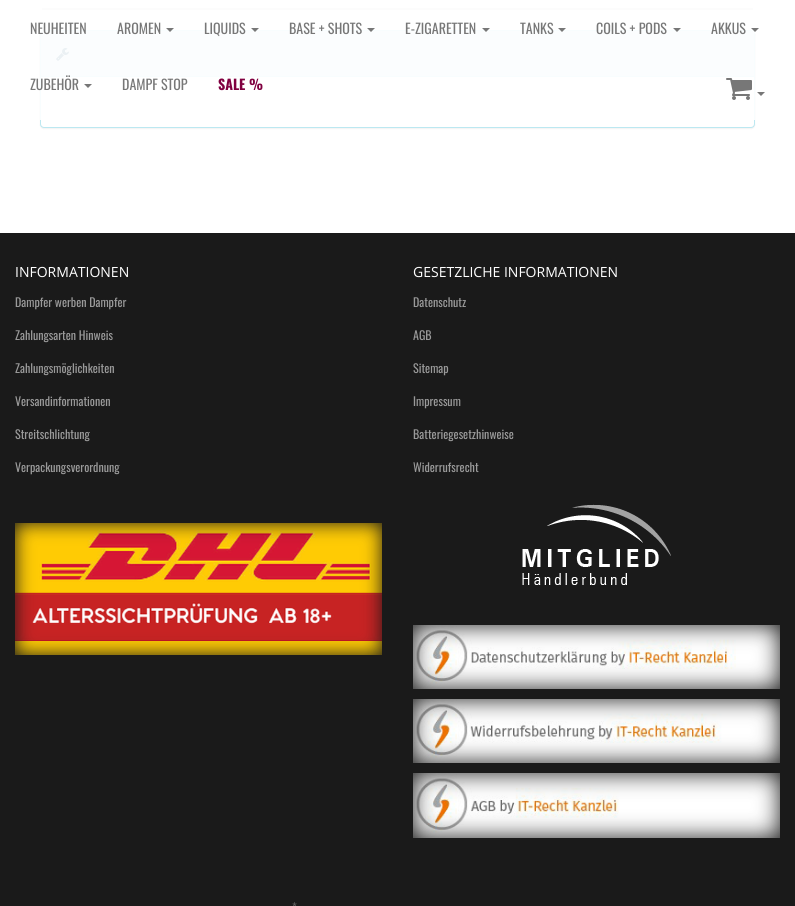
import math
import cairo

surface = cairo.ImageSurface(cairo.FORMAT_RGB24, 795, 906)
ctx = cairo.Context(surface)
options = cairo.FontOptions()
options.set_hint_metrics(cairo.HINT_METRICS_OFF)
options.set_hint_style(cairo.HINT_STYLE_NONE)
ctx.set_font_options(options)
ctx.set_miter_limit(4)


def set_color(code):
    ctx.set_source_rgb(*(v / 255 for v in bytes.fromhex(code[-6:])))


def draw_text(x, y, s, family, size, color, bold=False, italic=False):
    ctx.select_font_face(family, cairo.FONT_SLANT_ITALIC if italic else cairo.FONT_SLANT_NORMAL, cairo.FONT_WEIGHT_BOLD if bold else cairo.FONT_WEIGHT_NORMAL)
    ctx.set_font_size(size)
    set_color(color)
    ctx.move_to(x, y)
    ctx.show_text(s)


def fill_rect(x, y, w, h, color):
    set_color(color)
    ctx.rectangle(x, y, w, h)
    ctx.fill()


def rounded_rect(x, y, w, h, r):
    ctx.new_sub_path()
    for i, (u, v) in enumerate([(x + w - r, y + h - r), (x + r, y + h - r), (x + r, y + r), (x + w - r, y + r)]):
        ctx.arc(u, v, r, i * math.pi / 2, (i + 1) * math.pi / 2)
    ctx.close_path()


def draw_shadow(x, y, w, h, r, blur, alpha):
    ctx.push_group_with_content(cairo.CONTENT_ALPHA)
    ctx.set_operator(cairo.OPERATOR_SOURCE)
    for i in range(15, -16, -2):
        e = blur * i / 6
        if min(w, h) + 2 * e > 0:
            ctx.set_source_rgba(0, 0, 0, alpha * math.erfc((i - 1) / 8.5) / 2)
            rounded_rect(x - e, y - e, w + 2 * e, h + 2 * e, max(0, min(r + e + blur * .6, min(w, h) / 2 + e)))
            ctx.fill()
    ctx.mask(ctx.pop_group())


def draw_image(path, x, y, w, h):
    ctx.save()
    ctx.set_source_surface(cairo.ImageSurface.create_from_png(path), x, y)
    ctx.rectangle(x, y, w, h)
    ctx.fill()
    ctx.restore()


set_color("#ffffff")
ctx.paint()
fill_rect(42, 8, 711, 2, "#dfdfdf")
set_color("#000000")
draw_shadow(40, 31, 715, 98, 4, 0.5, 0.05)
set_color("#ffffff")
rounded_rect(40.5, 30.5, 714, 97, 3.5)
ctx.fill_preserve()
set_color("#bce8f1")
ctx.set_line_width(1)
ctx.stroke()
set_color("#d9edf7")
ctx.new_path()
ctx.move_to(44, 31)
ctx.line_to(751, 31)
ctx.curve_to(752.5, 31, 754, 32.5, 754, 34)
ctx.line_to(754, 77)
ctx.line_to(41, 77)
ctx.line_to(41, 34)
ctx.curve_to(41, 32.5, 42.5, 31, 44, 31)
ctx.close_path()
ctx.fill()
fill_rect(41, 76, 713, 1, "#bce8f1")
draw_image("assets/img1.png", 56, 48, 13, 13)
ctx.set_source_rgba(1, 1, 1, 0.9)
ctx.rectangle(40, 8, 715, 112)
ctx.fill()
draw_text(30, 34, "NEUHEITEN", "Oswald", 14, "#777777")
draw_text(117, 34, "AROMEN", "Oswald", 14, "#777777")
ctx.new_path()
ctx.move_to(166, 28)
ctx.line_to(174, 28)
ctx.line_to(170, 32)
ctx.close_path()
ctx.fill()
draw_text(204, 34, "LIQUIDS", "Oswald", 14, "#777777")
ctx.new_path()
ctx.move_to(251, 28)
ctx.line_to(259, 28)
ctx.line_to(255, 32)
ctx.close_path()
ctx.fill()
draw_text(289, 34, "BASE + SHOTS", "Oswald", 14, "#777777")
ctx.new_path()
ctx.move_to(367, 28)
ctx.line_to(375, 28)
ctx.line_to(371, 32)
ctx.close_path()
ctx.fill()
draw_text(405, 34, "E-ZIGARETTEN", "Oswald", 14, "#777777")
ctx.new_path()
ctx.move_to(482, 28)
ctx.line_to(490, 28)
ctx.line_to(486, 32)
ctx.close_path()
ctx.fill()
draw_text(520, 34, "TANKS", "Oswald", 14, "#777777")
ctx.new_path()
ctx.move_to(558, 28)
ctx.line_to(566, 28)
ctx.line_to(562, 32)
ctx.close_path()
ctx.fill()
draw_text(596, 34, "COILS + PODS", "Oswald", 14, "#777777")
ctx.new_path()
ctx.move_to(673, 28)
ctx.line_to(681, 28)
ctx.line_to(677, 32)
ctx.close_path()
ctx.fill()
draw_text(711, 34, "AKKUS", "Oswald", 14, "#777777")
ctx.new_path()
ctx.move_to(751, 28)
ctx.line_to(759, 28)
ctx.line_to(755, 32)
ctx.close_path()
ctx.fill()
draw_text(30, 90, "ZUBEHÖR", "Oswald", 14, "#777777")
ctx.new_path()
ctx.move_to(84, 84)
ctx.line_to(92, 84)
ctx.line_to(88, 88)
ctx.close_path()
ctx.fill()
draw_text(122, 90, "DAMPF STOP", "Oswald", 14, "#777777")
draw_text(218, 90, "SALE %", "Oswald", 14, "#800040", bold=True)
draw_image("assets/img2.png", 726, 78, 26, 22)
set_color("#777777")
ctx.new_path()
ctx.move_to(757, 92)
ctx.line_to(765, 92)
ctx.line_to(761, 96)
ctx.close_path()
ctx.fill()
fill_rect(0, 233, 795, 673, "#1a1a1a")
draw_text(15, 277, "INFORMATIONEN", "Open Sans", 14, "#ffffff")
draw_text(15, 307, "Dampfer werben Dampfer", "Oswald", 12, "#9a9a9a")
draw_text(15, 340, "Zahlungsarten Hinweis", "Oswald", 12, "#9a9a9a")
draw_text(15, 373, "Zahlungsmöglichkeiten", "Oswald", 12, "#9a9a9a")
draw_text(15, 406, "Versandinformationen", "Oswald", 12, "#9a9a9a")
draw_text(15, 439, "Streitschlichtung", "Oswald", 12, "#9a9a9a")
draw_text(15, 472, "Verpackungsverordnung", "Oswald", 12, "#9a9a9a")
draw_text(413, 277, "GESETZLICHE INFORMATIONEN", "Open Sans", 14, "#ffffff")
draw_text(413, 307, "Datenschutz", "Oswald", 12, "#9a9a9a")
draw_text(413, 340, "AGB", "Oswald", 12, "#9a9a9a")
draw_text(413, 373, "Sitemap", "Oswald", 12, "#9a9a9a")
draw_text(413, 406, "Impressum", "Oswald", 12, "#9a9a9a")
draw_text(413, 439, "Batteriegesetzhinweise", "Oswald", 12, "#9a9a9a")
draw_text(413, 472, "Widerrufsrecht", "Oswald", 12, "#9a9a9a")
draw_image("assets/img3.png", 15, 523, 367, 132)
draw_image("assets/img4.png", 522, 504, 149, 81)
draw_image("assets/img5.png", 413, 625, 367, 64)
draw_image("assets/img6.png", 413, 699, 367, 64)
draw_image("assets/img7.png", 413, 773, 367, 65)
draw_text(292, 912, "*", "Oswald", 12, "#606060")
surface.write_to_png("output.png")
